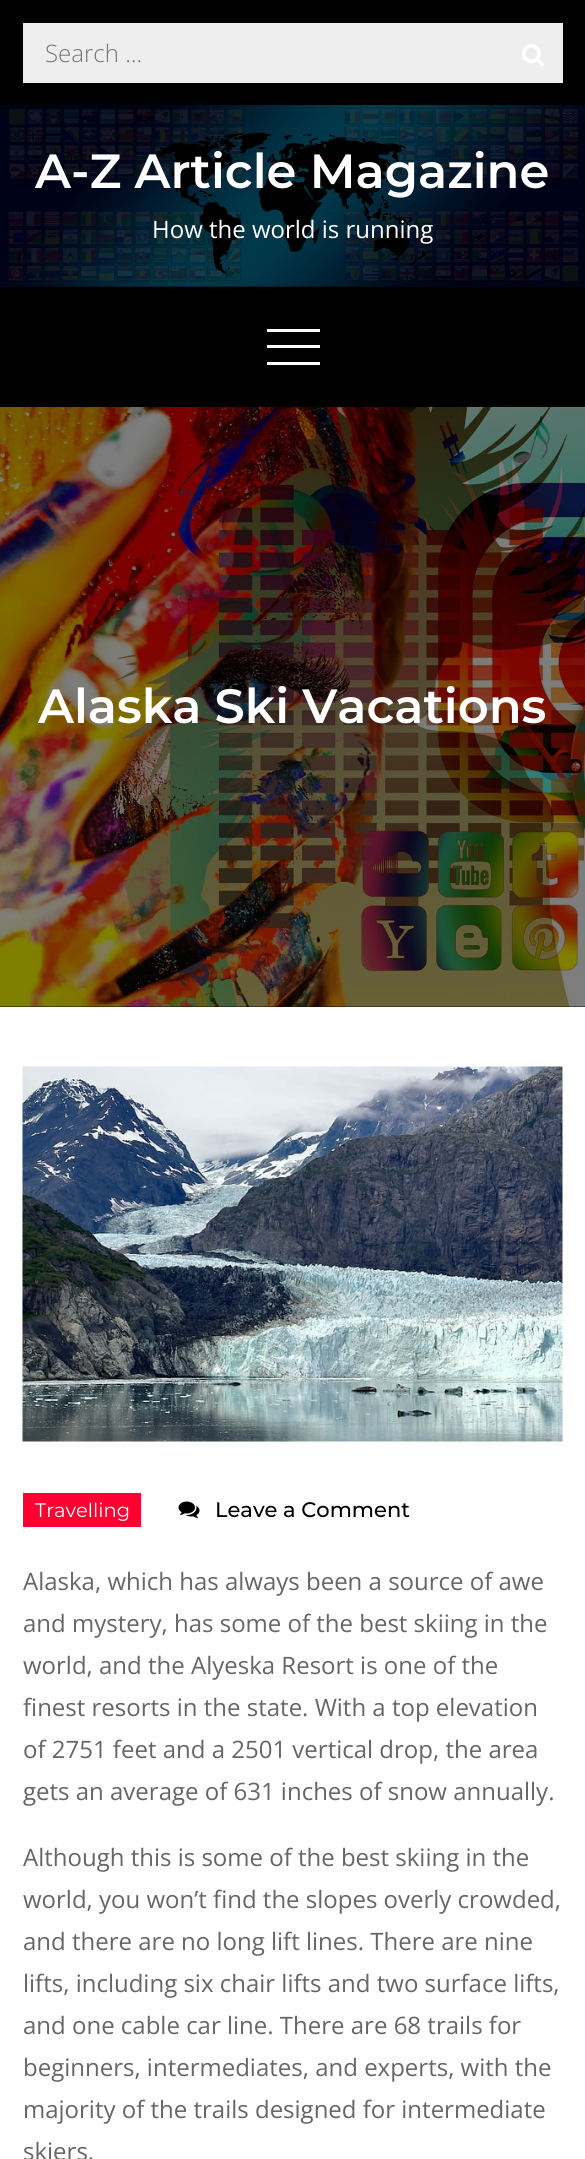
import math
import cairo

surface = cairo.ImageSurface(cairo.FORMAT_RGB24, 585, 2159)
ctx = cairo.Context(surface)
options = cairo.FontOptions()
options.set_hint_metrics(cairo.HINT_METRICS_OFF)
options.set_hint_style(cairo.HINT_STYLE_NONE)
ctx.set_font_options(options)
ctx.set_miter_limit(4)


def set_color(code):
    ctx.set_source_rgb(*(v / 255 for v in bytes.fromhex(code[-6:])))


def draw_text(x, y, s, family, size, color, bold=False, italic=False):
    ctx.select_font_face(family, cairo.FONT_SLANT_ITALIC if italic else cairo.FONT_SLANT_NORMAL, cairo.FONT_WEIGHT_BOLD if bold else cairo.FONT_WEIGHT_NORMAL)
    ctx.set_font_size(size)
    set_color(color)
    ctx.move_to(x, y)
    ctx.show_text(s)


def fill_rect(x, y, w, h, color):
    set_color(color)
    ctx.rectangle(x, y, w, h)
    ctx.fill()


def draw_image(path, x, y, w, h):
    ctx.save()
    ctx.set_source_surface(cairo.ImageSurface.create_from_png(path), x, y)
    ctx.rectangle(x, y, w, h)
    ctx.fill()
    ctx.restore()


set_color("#ffffff")
ctx.paint()
fill_rect(0, 0, 585, 105, "#000000")
fill_rect(23, 23, 540, 60, "#eeeeee")
draw_text(45, 62, "Search ...", "Open Sans Light", 24, "#757575")
draw_image("assets/img1.png", 522, 44, 22, 23)
fill_rect(0, 286, 585, 1, "#18191b")
draw_image("assets/img2.png", 0, 105, 585, 182)
ctx.set_source_rgba(0, 0, 0, 0.7)
ctx.rectangle(0, 105, 585, 182)
ctx.fill()
draw_text(35, 188, "A-Z Article Magazine", "Montserrat SemiBold", 48, "#ffffff")
draw_text(152, 238, "How the world is running", "Open Sans", 24, "#ffffff")
fill_rect(0, 287, 585, 120, "#000000")
fill_rect(267, 329, 53, 3, "#ffffff")
fill_rect(267, 345, 53, 3, "#ffffff")
fill_rect(267, 362, 53, 3, "#ffffff")
fill_rect(0, 1006, 585, 1, "#10161b")
draw_image("assets/img3.png", 0, 407, 585, 600)
draw_text(38, 723, "Alaska Ski Vacations", "Montserrat SemiBold", 48, "#ffffff")
draw_image("assets/img4.png", 22, 1066, 541, 376)
fill_rect(23, 1493, 118, 34, "#ff0030")
draw_text(35, 1517, "Travelling", "Montserrat", 19.5, "#ffffff")
draw_image("assets/img5.png", 178, 1501, 22, 17)
draw_text(215, 1517, "Leave a Comment", "Montserrat Medium", 21, "#000000")
draw_text(23, 1590, "Alaska, which has always been a source of awe", "Open Sans", 24, "#666666")
draw_text(23, 1632, "and mystery, has some of the best skiing in the", "Open Sans", 24, "#666666")
draw_text(23, 1674, "world, and the Alyeska Resort is one of the", "Open Sans", 24, "#666666")
draw_text(23, 1716, "finest resorts in the state. With a top elevation", "Open Sans", 24, "#666666")
draw_text(23, 1758, "of 2751 feet and a 2501 vertical drop, the area", "Open Sans", 24, "#666666")
draw_text(23, 1800, "gets an average of 631 inches of snow annually.", "Open Sans", 24, "#666666")
draw_text(23, 1866, "Although this is some of the best skiing in the", "Open Sans", 24, "#666666")
draw_text(23, 1908, "world, you won’t find the slopes overly crowded,", "Open Sans", 24, "#666666")
draw_text(23, 1950, "and there are no long lift lines. There are nine", "Open Sans", 24, "#666666")
draw_text(23, 1992, "lifts, including six chair lifts and two surface lifts,", "Open Sans", 24, "#666666")
draw_text(23, 2034, "and one cable car line. There are 68 trails for", "Open Sans", 24, "#666666")
draw_text(23, 2076, "beginners, intermediates, and experts, with the", "Open Sans", 24, "#666666")
draw_text(23, 2118, "majority of the trails designed for intermediate", "Open Sans", 24, "#666666")
draw_text(23, 2160, "skiers.", "Open Sans", 24, "#666666")
surface.write_to_png("output.png")
